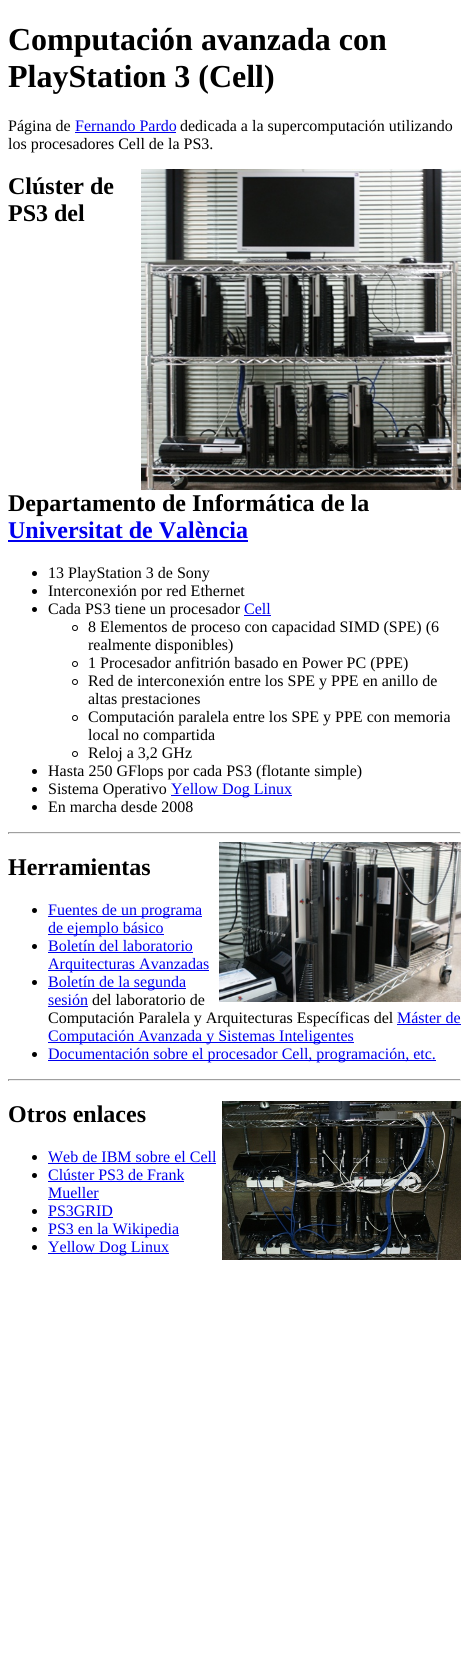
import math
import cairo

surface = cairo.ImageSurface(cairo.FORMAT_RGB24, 469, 1677)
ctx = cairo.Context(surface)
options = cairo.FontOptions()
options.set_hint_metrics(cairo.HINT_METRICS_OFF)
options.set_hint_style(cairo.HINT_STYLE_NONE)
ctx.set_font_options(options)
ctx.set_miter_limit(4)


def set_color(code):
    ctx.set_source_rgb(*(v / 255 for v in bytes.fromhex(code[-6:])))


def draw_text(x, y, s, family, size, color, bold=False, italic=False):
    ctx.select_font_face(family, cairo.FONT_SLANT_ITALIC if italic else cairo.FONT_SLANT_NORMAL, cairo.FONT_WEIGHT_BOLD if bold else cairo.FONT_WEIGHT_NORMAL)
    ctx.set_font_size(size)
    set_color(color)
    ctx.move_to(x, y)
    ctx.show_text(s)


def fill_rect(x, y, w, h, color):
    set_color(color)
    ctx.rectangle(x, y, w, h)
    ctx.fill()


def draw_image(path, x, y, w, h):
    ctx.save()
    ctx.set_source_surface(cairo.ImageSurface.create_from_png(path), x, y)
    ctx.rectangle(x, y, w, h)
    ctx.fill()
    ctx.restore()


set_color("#ffffff")
ctx.paint()
draw_text(8, 50, "Computación avanzada con", "Liberation Serif", 32, "#000000", bold=True)
draw_text(8, 87, "PlayStation 3 (Cell)", "Liberation Serif", 32, "#000000", bold=True)
draw_text(8, 131, "Página de", "Liberation Serif", 16, "#000000")
draw_text(75, 131, "Fernando Pardo", "Liberation Serif", 16, "#0000ee")
fill_rect(75, 132, 101, 1, "#0000ee")
draw_text(180, 131, "dedicada a la supercomputación utilizando", "Liberation Serif", 16, "#000000")
draw_text(8, 149, "los procesadores Cell de la PS3.", "Liberation Serif", 16, "#000000")
draw_image("assets/img1.png", 141, 169, 320, 321)
draw_text(8, 194, "Clúster de", "Liberation Serif", 24, "#000000", bold=True)
draw_text(8, 221, "PS3 del", "Liberation Serif", 24, "#000000", bold=True)
draw_text(8, 511, "Departamento de Informática de la", "Liberation Serif", 24, "#000000", bold=True)
draw_text(8, 538, "Universitat de València", "Liberation Serif", 24, "#0000ee", bold=True)
fill_rect(8, 540, 240, 2, "#0000ee")
set_color("#000000")
ctx.new_path()
ctx.arc(34.5, 573.5, 2.5, 0, 2 * math.pi)
ctx.fill()
draw_text(48, 578, "13 PlayStation 3 de Sony", "Liberation Serif", 16, "#000000")
ctx.new_path()
ctx.arc(34.5, 591.5, 2.5, 0, 2 * math.pi)
ctx.fill()
draw_text(48, 596, "Interconexión por red Ethernet", "Liberation Serif", 16, "#000000")
ctx.new_path()
ctx.arc(34.5, 609.5, 2.5, 0, 2 * math.pi)
ctx.fill()
draw_text(48, 614, "Cada PS3 tiene un procesador", "Liberation Serif", 16, "#000000")
draw_text(244, 614, "Cell", "Liberation Serif", 16, "#0000ee")
fill_rect(244, 615, 27, 1, "#0000ee")
ctx.new_path()
ctx.arc(75, 628, 2.5, 0, 2 * math.pi)
set_color("#000000")
ctx.set_line_width(1)
ctx.stroke()
draw_text(88, 632, "8 Elementos de proceso con capacidad SIMD (SPE) (6", "Liberation Serif", 16, "#000000")
draw_text(88, 650, "realmente disponibles)", "Liberation Serif", 16, "#000000")
ctx.new_path()
ctx.arc(75, 664, 2.5, 0, 2 * math.pi)
ctx.stroke()
draw_text(88, 668, "1 Procesador anfitrión basado en Power PC (PPE)", "Liberation Serif", 16, "#000000")
ctx.new_path()
ctx.arc(75, 682, 2.5, 0, 2 * math.pi)
ctx.stroke()
draw_text(88, 686, "Red de interconexión entre los SPE y PPE en anillo de", "Liberation Serif", 16, "#000000")
draw_text(88, 704, "altas prestaciones", "Liberation Serif", 16, "#000000")
ctx.new_path()
ctx.arc(75, 718, 2.5, 0, 2 * math.pi)
ctx.stroke()
draw_text(88, 722, "Computación paralela entre los SPE y PPE con memoria", "Liberation Serif", 16, "#000000")
draw_text(88, 740, "local no compartida", "Liberation Serif", 16, "#000000")
ctx.new_path()
ctx.arc(75, 754, 2.5, 0, 2 * math.pi)
ctx.stroke()
draw_text(88, 758, "Reloj a 3,2 GHz", "Liberation Serif", 16, "#000000")
ctx.new_path()
ctx.arc(34.5, 771.5, 2.5, 0, 2 * math.pi)
ctx.fill()
draw_text(48, 776, "Hasta 250 GFlops por cada PS3 (flotante simple)", "Liberation Serif", 16, "#000000")
ctx.new_path()
ctx.arc(34.5, 789.5, 2.5, 0, 2 * math.pi)
ctx.fill()
draw_text(48, 794, "Sistema Operativo", "Liberation Serif", 16, "#000000")
fill_rect(171, 795, 121, 1, "#0000ee")
draw_text(171, 794, "Yellow Dog Linux", "Liberation Serif", 16, "#0000ee")
set_color("#000000")
ctx.new_path()
ctx.arc(34.5, 807.5, 2.5, 0, 2 * math.pi)
ctx.fill()
draw_text(48, 812, "En marcha desde 2008", "Liberation Serif", 16, "#000000")
fill_rect(8, 832, 453, 1, "#9f9f9f")
fill_rect(460, 832, 1, 2, "#eeeeee")
fill_rect(8, 833, 453, 1, "#eeeeee")
fill_rect(8, 832, 1, 2, "#9f9f9f")
draw_text(8, 875, "Herramientas", "Liberation Serif", 24, "#000000", bold=True)
draw_image("assets/img2.png", 219, 842, 242, 160)
ctx.arc(34.5, 910.5, 2.5, 0, 2 * math.pi)
ctx.fill()
fill_rect(48, 916, 154, 1, "#0000ee")
draw_text(48, 915, "Fuentes de un programa", "Liberation Serif", 16, "#0000ee")
fill_rect(48, 934, 116, 1, "#0000ee")
draw_text(48, 933, "de ejemplo básico", "Liberation Serif", 16, "#0000ee")
set_color("#000000")
ctx.new_path()
ctx.arc(34.5, 946.5, 2.5, 0, 2 * math.pi)
ctx.fill()
draw_text(48, 951, "Boletín del laboratorio", "Liberation Serif", 16, "#0000ee")
fill_rect(48, 952, 145, 1, "#0000ee")
fill_rect(48, 970, 161, 1, "#0000ee")
draw_text(48, 969, "Arquitecturas Avanzadas", "Liberation Serif", 16, "#0000ee")
set_color("#000000")
ctx.new_path()
ctx.arc(34.5, 982.5, 2.5, 0, 2 * math.pi)
ctx.fill()
fill_rect(48, 988, 138, 1, "#0000ee")
draw_text(48, 987, "Boletín de la segunda", "Liberation Serif", 16, "#0000ee")
draw_text(48, 1005, "sesión", "Liberation Serif", 16, "#0000ee")
fill_rect(48, 1006, 40, 1, "#0000ee")
draw_text(92, 1005, "del laboratorio de", "Liberation Serif", 16, "#000000")
draw_text(48, 1023, "Computación Paralela y Arquitecturas Específicas del", "Liberation Serif", 16, "#000000")
draw_text(397, 1023, "Máster de", "Liberation Serif", 16, "#0000ee")
fill_rect(397, 1024, 64, 1, "#0000ee")
fill_rect(48, 1042, 306, 1, "#0000ee")
draw_text(48, 1041, "Computación Avanzada y Sistemas Inteligentes", "Liberation Serif", 16, "#0000ee")
set_color("#000000")
ctx.new_path()
ctx.arc(34.5, 1054.5, 2.5, 0, 2 * math.pi)
ctx.fill()
fill_rect(48, 1060, 388, 1, "#0000ee")
draw_text(48, 1059, "Documentación sobre el procesador Cell, programación, etc.", "Liberation Serif", 16, "#0000ee")
fill_rect(8, 1079, 453, 1, "#9f9f9f")
fill_rect(460, 1079, 1, 2, "#eeeeee")
fill_rect(8, 1080, 453, 1, "#eeeeee")
fill_rect(8, 1079, 1, 2, "#9f9f9f")
draw_text(8, 1122, "Otros enlaces", "Liberation Serif", 24, "#000000", bold=True)
draw_image("assets/img3.png", 222, 1101, 239, 159)
ctx.arc(34.5, 1157.5, 2.5, 0, 2 * math.pi)
ctx.fill()
draw_text(48, 1162, "Web de IBM sobre el Cell", "Liberation Serif", 16, "#0000ee")
fill_rect(48, 1163, 168, 1, "#0000ee")
set_color("#000000")
ctx.new_path()
ctx.arc(34.5, 1175.5, 2.5, 0, 2 * math.pi)
ctx.fill()
draw_text(48, 1180, "Clúster PS3 de Frank", "Liberation Serif", 16, "#0000ee")
fill_rect(48, 1181, 136, 1, "#0000ee")
draw_text(48, 1198, "Mueller", "Liberation Serif", 16, "#0000ee")
fill_rect(48, 1199, 51, 1, "#0000ee")
set_color("#000000")
ctx.new_path()
ctx.arc(34.5, 1211.5, 2.5, 0, 2 * math.pi)
ctx.fill()
draw_text(48, 1216, "PS3GRID", "Liberation Serif", 16, "#0000ee")
fill_rect(48, 1217, 65, 1, "#0000ee")
set_color("#000000")
ctx.new_path()
ctx.arc(34.5, 1229.5, 2.5, 0, 2 * math.pi)
ctx.fill()
fill_rect(48, 1235, 131, 1, "#0000ee")
draw_text(48, 1234, "PS3 en la Wikipedia", "Liberation Serif", 16, "#0000ee")
set_color("#000000")
ctx.new_path()
ctx.arc(34.5, 1247.5, 2.5, 0, 2 * math.pi)
ctx.fill()
fill_rect(48, 1253, 121, 1, "#0000ee")
draw_text(48, 1252, "Yellow Dog Linux", "Liberation Serif", 16, "#0000ee")
surface.write_to_png("output.png")
